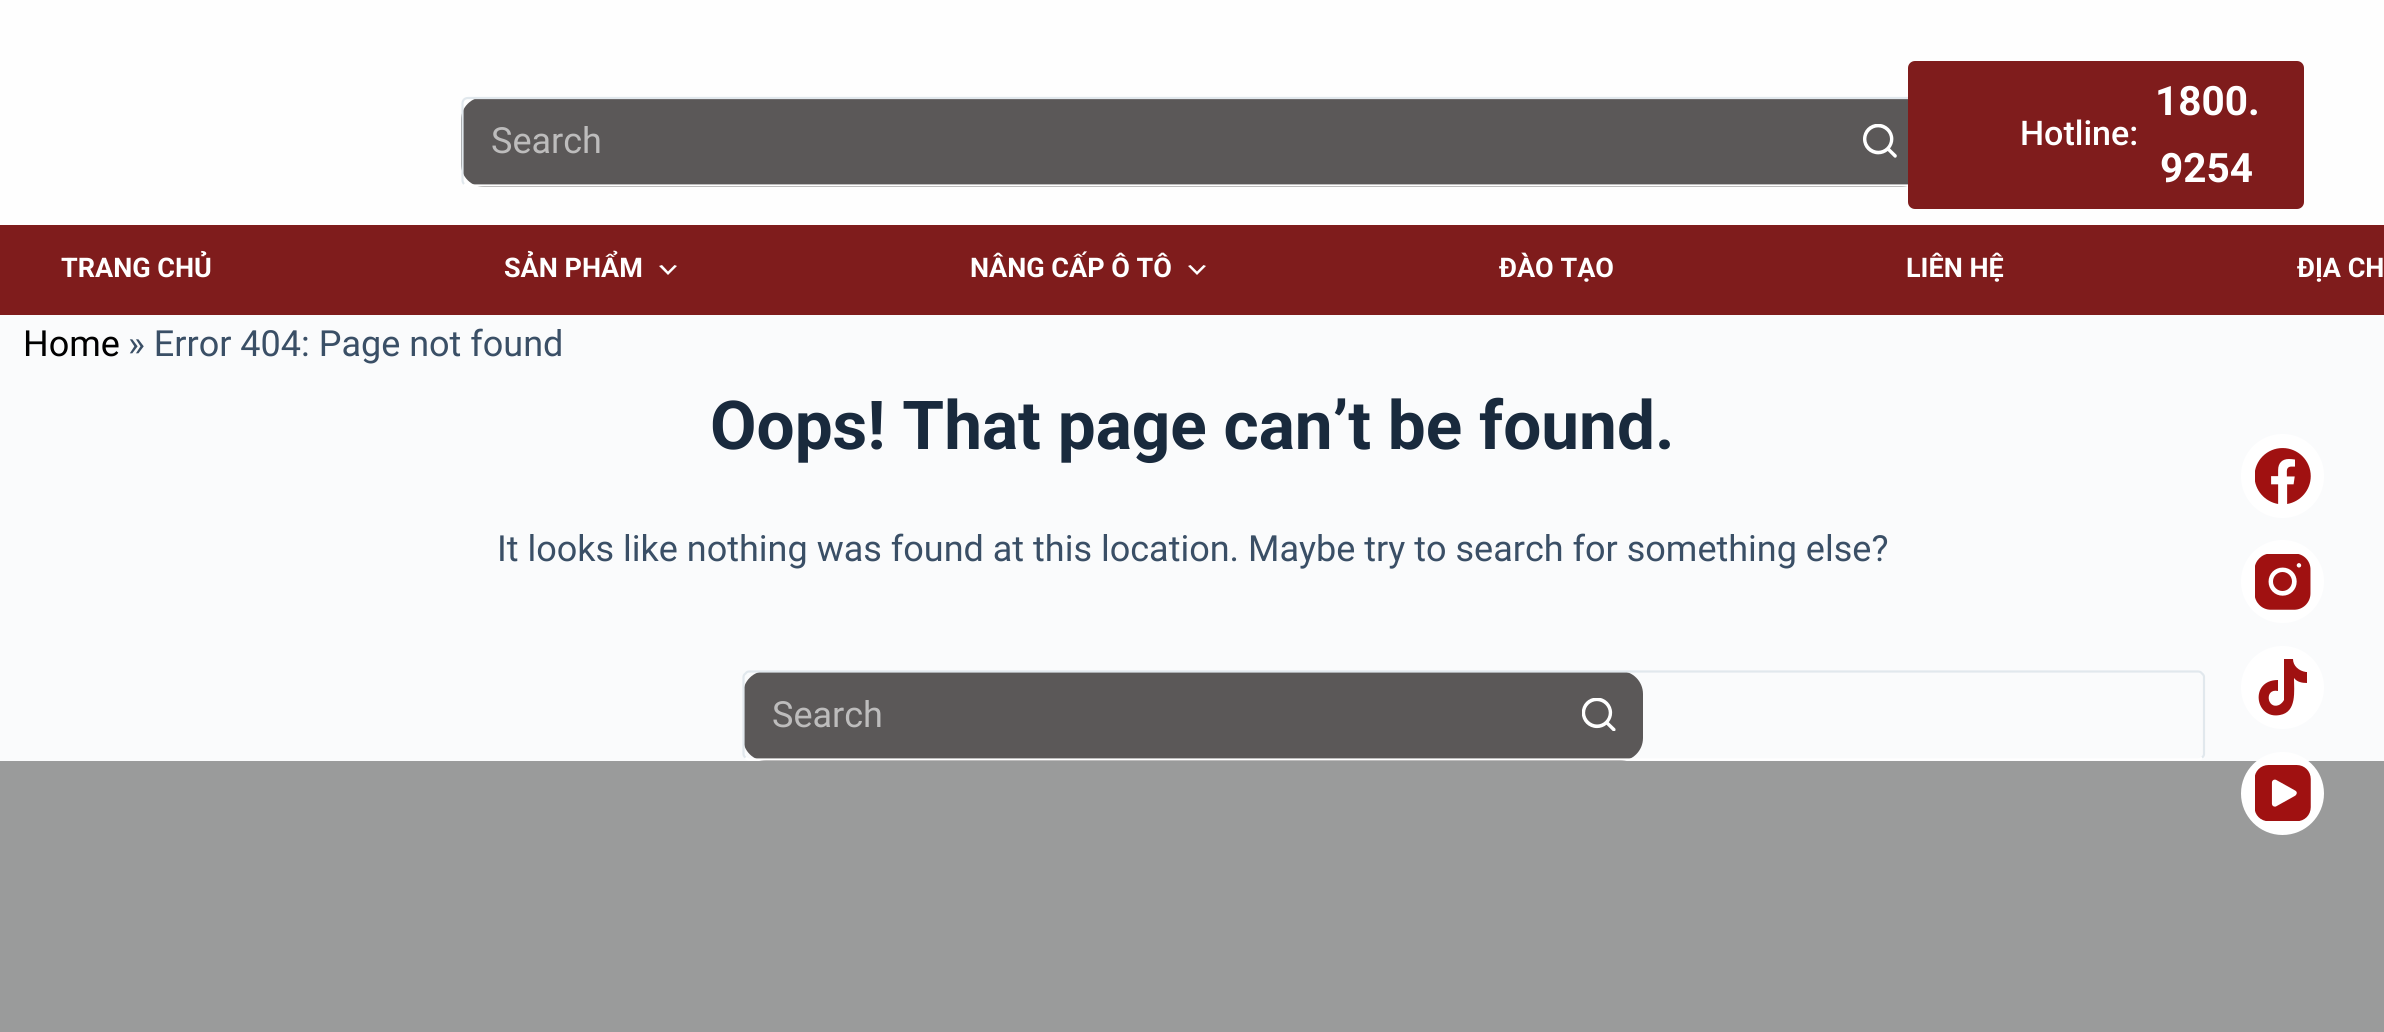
import math
import cairo

surface = cairo.ImageSurface(cairo.FORMAT_RGB24, 2384, 1032)
ctx = cairo.Context(surface)
options = cairo.FontOptions()
options.set_hint_metrics(cairo.HINT_METRICS_OFF)
options.set_hint_style(cairo.HINT_STYLE_NONE)
ctx.set_font_options(options)
ctx.set_miter_limit(4)


def set_color(code):
    ctx.set_source_rgb(*(v / 255 for v in bytes.fromhex(code[-6:])))


def draw_text(x, y, s, family, size, color, bold=False, italic=False):
    ctx.select_font_face(family, cairo.FONT_SLANT_ITALIC if italic else cairo.FONT_SLANT_NORMAL, cairo.FONT_WEIGHT_BOLD if bold else cairo.FONT_WEIGHT_NORMAL)
    ctx.set_font_size(size)
    set_color(color)
    ctx.move_to(x, y)
    ctx.show_text(s)


def fill_rect(x, y, w, h, color):
    set_color(color)
    ctx.rectangle(x, y, w, h)
    ctx.fill()


def rounded_rect(x, y, w, h, r):
    ctx.new_sub_path()
    for i, (u, v) in enumerate([(x + w - r, y + h - r), (x + r, y + h - r), (x + r, y + r), (x + w - r, y + r)]):
        ctx.arc(u, v, r, i * math.pi / 2, (i + 1) * math.pi / 2)
    ctx.close_path()


def draw_image(path, x, y, w, h):
    ctx.save()
    ctx.set_source_surface(cairo.ImageSurface.create_from_png(path), x, y)
    ctx.rectangle(x, y, w, h)
    ctx.fill()
    ctx.restore()


set_color("#fafbfc")
ctx.paint()
fill_rect(0, 0, 2384, 225, "#fefefe")
set_color("#5b5858")
rounded_rect(461, 97, 1463, 90, 23)
ctx.fill()
ctx.new_path()
ctx.move_to(1921, 184)
ctx.curve_to(1920, 185, 1918.5, 185.5, 1917, 185.5)
ctx.line_to(468, 185.5)
ctx.curve_to(466.5, 185.5, 465, 185, 464, 184)
set_color("#ffffff")
ctx.set_line_width(2.2)
ctx.stroke()
ctx.new_path()
ctx.move_to(464, 184)
ctx.curve_to(463, 183, 462.5, 181.5, 462.5, 180)
ctx.line_to(462.5, 103.5)
ctx.curve_to(462.5, 102, 463, 100.5, 464, 99.5)
ctx.curve_to(465, 98.5, 466.5, 98, 468, 98)
ctx.line_to(1917, 98)
ctx.curve_to(1918.5, 98, 1920, 98.5, 1921, 99.5)
ctx.curve_to(1922, 100.5, 1922.5, 102, 1922.5, 103.5)
ctx.line_to(1922.5, 180)
ctx.curve_to(1922.5, 181.5, 1922, 183, 1921, 184)
set_color("#e1e8ed")
ctx.stroke()
draw_text(491, 153, "Search", "Roboto", 36, "#bdbcbc")
draw_image("assets/img1.png", 1863, 124, 34, 34)
set_color("#7f1c1c")
rounded_rect(1908, 61, 396, 148, 7)
ctx.fill()
draw_text(2020, 145, "Hotline:", "Roboto Medium", 34, "#ffffff")
draw_text(2155, 115, "1800.", "Roboto", 40.5, "#ffffff", bold=True)
draw_text(2160, 182, "9254", "Roboto", 40.5, "#ffffff", bold=True)
rounded_rect(2241, 434, 83, 84, 41.5)
ctx.fill()
draw_image("assets/img2.png", 2255, 448, 56, 56)
ctx.arc(2282.5, 581.5, 41.5, 0, 2 * math.pi)
ctx.fill()
draw_image("assets/img3.png", 2255, 554, 56, 56)
ctx.arc(2282.5, 687.5, 41.5, 0, 2 * math.pi)
ctx.fill()
set_color("#a01111")
ctx.new_path()
ctx.move_to(2306, 672)
ctx.curve_to(2299, 671, 2293, 666, 2293, 659)
ctx.line_to(2284, 659)
ctx.line_to(2284, 700)
ctx.curve_to(2283, 702, 2281, 704, 2279, 705)
ctx.curve_to(2267, 710, 2264, 688, 2278, 691)
ctx.line_to(2278, 680)
ctx.curve_to(2249, 680, 2255, 720, 2280, 715)
ctx.curve_to(2297, 712, 2294, 691, 2294, 678)
ctx.curve_to(2297, 682, 2302, 683, 2307, 683)
ctx.line_to(2307, 672)
ctx.close_path()
ctx.fill()
fill_rect(0, 761, 2384, 271, "#9a9b9b")
set_color("#ffffff")
ctx.arc(2282.5, 793.5, 41.5, 0, 2 * math.pi)
ctx.fill()
draw_image("assets/img4.png", 2255, 765, 56, 56)
fill_rect(0, 225, 2384, 90, "#7f1c1c")
draw_text(61, 277, "TRANG CHỦ", "Roboto", 27, "#ffffff", bold=True)
draw_text(504, 277, "SẢN PHẨM", "Roboto", 27, "#ffffff", bold=True)
ctx.new_path()
ctx.move_to(662, 265)
ctx.line_to(668, 271.5)
ctx.line_to(674.5, 265)
ctx.line_to(677, 266)
ctx.line_to(668, 275)
ctx.line_to(659, 266)
ctx.close_path()
ctx.fill()
draw_text(970, 277, "NÂNG CẤP Ô TÔ", "Roboto", 27, "#ffffff", bold=True)
ctx.new_path()
ctx.move_to(1190.5, 265)
ctx.line_to(1197, 271.5)
ctx.line_to(1203.5, 265)
ctx.line_to(1206, 266)
ctx.line_to(1197, 275)
ctx.line_to(1188, 266)
ctx.close_path()
ctx.fill()
draw_text(1499, 277, "ĐÀO TẠO", "Roboto", 27, "#ffffff", bold=True)
draw_text(1906, 277, "LIÊN HỆ", "Roboto", 27, "#ffffff", bold=True)
draw_text(2297, 277, "ĐỊA CH", "Roboto", 27, "#ffffff", bold=True)
draw_text(23, 356, "Home", "Roboto", 36, "#000000")
draw_text(128, 356, "» Error 404: Page not found", "Roboto", 36, "#3a4f66")
draw_text(710, 449, "Oops! That page can’t be found.", "Roboto", 67.5, "#192a3d", bold=True)
draw_text(497, 561, "It looks like nothing was found at this location. Maybe try to search for something else?", "Roboto", 36, "#3a4f66")
set_color("#5b5858")
rounded_rect(743, 671, 900, 90, 23)
ctx.fill()
ctx.new_path()
ctx.move_to(2202, 757.5)
ctx.curve_to(2201, 759, 2199.5, 759.5, 2198, 759.5)
ctx.line_to(749, 759.5)
ctx.curve_to(748, 759.5, 746.5, 759, 745.5, 757.5)
set_color("#ffffff")
ctx.stroke()
ctx.new_path()
ctx.move_to(745.5, 757.5)
ctx.curve_to(744, 756.5, 743.5, 755, 743.5, 754)
ctx.line_to(743.5, 677)
ctx.curve_to(743.5, 676, 744, 674.5, 745.5, 673.5)
ctx.curve_to(746.5, 672, 748, 671.5, 749, 671.5)
ctx.line_to(2198, 671.5)
ctx.curve_to(2199.5, 671.5, 2201, 672, 2202, 673.5)
ctx.curve_to(2203.5, 674.5, 2204, 676, 2204, 677)
ctx.line_to(2204, 754)
ctx.curve_to(2204, 755, 2203.5, 756.5, 2202, 757.5)
set_color("#e1e8ed")
ctx.stroke()
draw_text(772, 727, "Search", "Roboto", 36, "#bdbcbc")
draw_image("assets/img5.png", 1582, 698, 34, 33)
surface.write_to_png("output.png")
